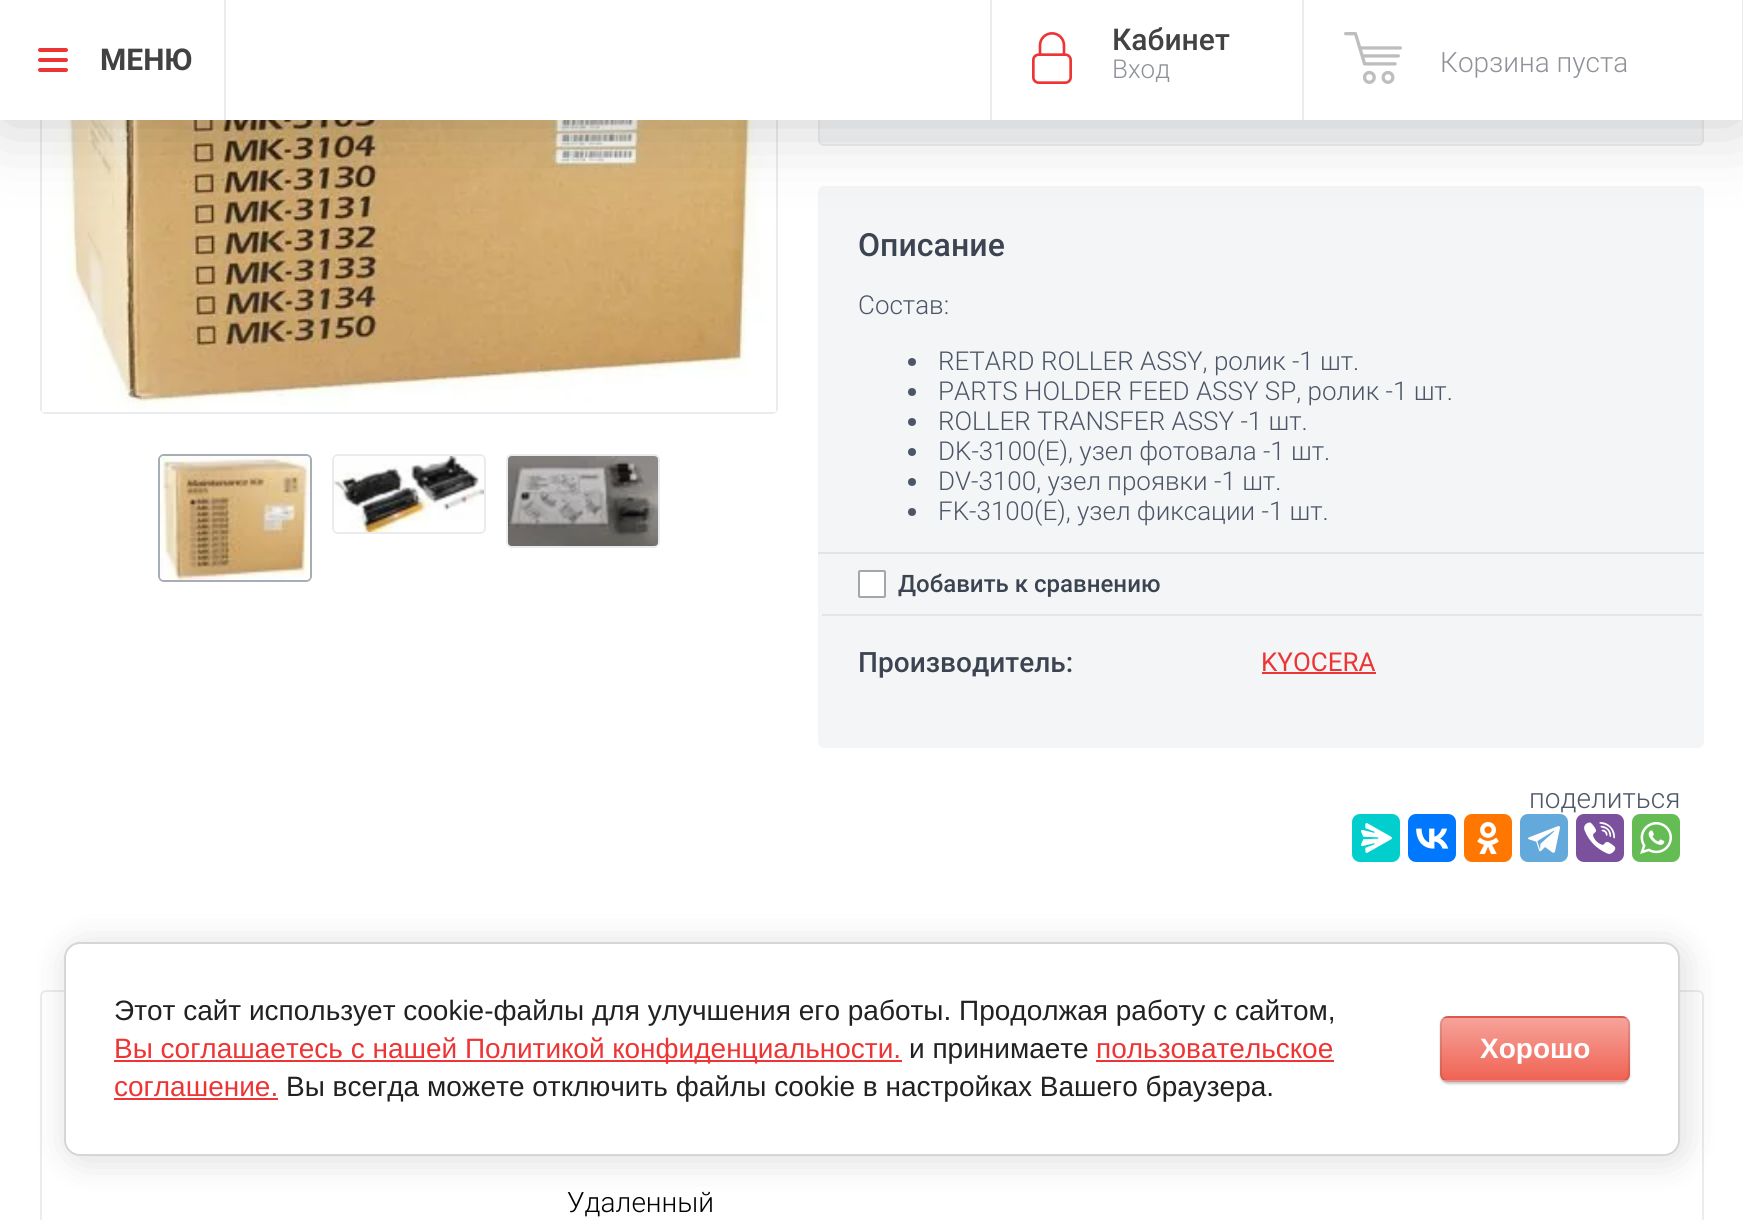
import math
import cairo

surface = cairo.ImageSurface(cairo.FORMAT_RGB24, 1743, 1220)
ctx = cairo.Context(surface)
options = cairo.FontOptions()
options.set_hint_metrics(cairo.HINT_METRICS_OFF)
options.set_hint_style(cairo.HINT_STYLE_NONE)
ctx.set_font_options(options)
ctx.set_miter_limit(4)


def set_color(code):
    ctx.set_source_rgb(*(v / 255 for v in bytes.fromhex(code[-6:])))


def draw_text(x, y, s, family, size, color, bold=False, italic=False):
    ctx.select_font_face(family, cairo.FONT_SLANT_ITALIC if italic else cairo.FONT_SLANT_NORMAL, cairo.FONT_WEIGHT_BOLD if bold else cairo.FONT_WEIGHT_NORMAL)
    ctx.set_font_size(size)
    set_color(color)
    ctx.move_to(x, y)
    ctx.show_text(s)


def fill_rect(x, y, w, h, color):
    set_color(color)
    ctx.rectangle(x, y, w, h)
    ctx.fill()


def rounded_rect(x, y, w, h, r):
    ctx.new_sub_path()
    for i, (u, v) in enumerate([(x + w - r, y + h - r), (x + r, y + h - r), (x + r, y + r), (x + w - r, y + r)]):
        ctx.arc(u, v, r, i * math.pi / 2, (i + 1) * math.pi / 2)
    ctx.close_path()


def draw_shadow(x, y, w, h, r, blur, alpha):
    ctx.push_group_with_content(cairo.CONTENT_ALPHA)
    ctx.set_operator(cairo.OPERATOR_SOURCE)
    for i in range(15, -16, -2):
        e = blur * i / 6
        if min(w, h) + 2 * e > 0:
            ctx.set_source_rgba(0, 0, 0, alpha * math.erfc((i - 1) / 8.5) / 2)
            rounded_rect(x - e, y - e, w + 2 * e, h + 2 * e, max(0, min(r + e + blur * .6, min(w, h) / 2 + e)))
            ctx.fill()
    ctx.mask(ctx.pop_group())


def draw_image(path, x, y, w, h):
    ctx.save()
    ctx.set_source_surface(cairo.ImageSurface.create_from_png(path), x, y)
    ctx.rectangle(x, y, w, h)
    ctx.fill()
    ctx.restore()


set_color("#ffffff")
ctx.paint()
rounded_rect(41, -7, 736, 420, 5)
set_color("#e9ebee")
ctx.stroke()
draw_image("assets/img4.png", 42, 120, 734, 292)
ctx.save()
rounded_rect(818, -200, 886, 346, 6)
ctx.clip()
gradient = cairo.LinearGradient(1261, 144, 1261, -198)
gradient.add_color_stop_rgba(0, 0.957, 0.961, 0.965, 1)
gradient.add_color_stop_rgba(0.5, 1, 1, 1, 1)
ctx.set_source(gradient)
ctx.rectangle(818, 120, 886, 24)
ctx.fill()
ctx.restore()
rounded_rect(819, -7, 884, 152, 5)
set_color("#ececec")
ctx.stroke()
set_color("#f4f5f6")
rounded_rect(818, 186, 886, 562, 6)
ctx.fill()
set_color("#000000")
draw_shadow(0, 2, 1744, 120, 0, 40, 0.2)
fill_rect(0, 0, 1742, 120, "#ffffff")
draw_image("assets/img1.png", 38, 48, 30, 24)
fill_rect(224, 0, 2, 120, "#ececec")
draw_text(100, 70, "МЕНЮ", "Roboto", 30, "#424242", bold=True)
fill_rect(990, 0, 2, 120, "#ececec")
fill_rect(1302, 0, 2, 120, "#ececec")
draw_image("assets/img2.png", 1032, 32, 40, 52)
draw_text(1112, 50, "Кабинет", "Roboto Medium", 30, "#424242")
draw_text(1112, 78, "Вход", "Roboto Light", 26, "#8e9298")
fill_rect(1742, 0, 1, 120, "#ececec")
draw_image("assets/img3.png", 1344, 32, 58, 52)
draw_text(1440, 72, "Корзина пуста", "Roboto Light", 28, "#8e9298")
rounded_rect(159, 455, 152, 126, 5)
set_color("#a7adb6")
ctx.stroke()
draw_image("assets/img5.png", 160, 456, 150, 124)
rounded_rect(333, 455, 152, 78, 5)
set_color("#e9ebee")
ctx.stroke()
draw_image("assets/img6.png", 334, 456, 150, 76)
rounded_rect(507, 455, 152, 92, 5)
ctx.stroke()
draw_image("assets/img7.png", 508, 456, 150, 90)
fill_rect(818, 552, 886, 2, "#e3e4e5")
draw_text(858, 256, "Описание", "Roboto Medium", 32, "#3c4452")
draw_text(858, 314, "Состав:", "Roboto Light", 26, "#4c5667")
ctx.new_path()
ctx.arc(912, 362, 4, 0, 2 * math.pi)
ctx.fill()
draw_text(938, 370, "RETARD ROLLER ASSY, ролик -1 шт.", "Roboto Light", 26, "#4c5667")
ctx.new_path()
ctx.arc(912, 392, 4, 0, 2 * math.pi)
ctx.fill()
draw_text(938, 400, "PARTS HOLDER FEED ASSY SP, ролик -1 шт.", "Roboto Light", 26, "#4c5667")
ctx.new_path()
ctx.arc(912, 422, 4, 0, 2 * math.pi)
ctx.fill()
draw_text(938, 430, "ROLLER TRANSFER ASSY -1 шт.", "Roboto Light", 26, "#4c5667")
ctx.new_path()
ctx.arc(912, 452, 4, 0, 2 * math.pi)
ctx.fill()
draw_text(938, 460, "DK-3100(E), узел фотовала -1 шт.", "Roboto Light", 26, "#4c5667")
ctx.new_path()
ctx.arc(912, 482, 4, 0, 2 * math.pi)
ctx.fill()
draw_text(938, 490, "DV-3100, узел проявки -1 шт.", "Roboto Light", 26, "#4c5667")
ctx.new_path()
ctx.arc(912, 512, 4, 0, 2 * math.pi)
ctx.fill()
draw_text(938, 520, "FK-3100(E), узел фиксации -1 шт.", "Roboto Light", 26, "#4c5667")
fill_rect(822, 614, 880, 2, "#e5e5e5")
set_color("#ffffff")
rounded_rect(859, 571, 26, 26, 1)
ctx.fill_preserve()
set_color("#a6a6a6")
ctx.stroke()
draw_text(898, 592, "Добавить к сравнению", "Roboto Medium", 24, "#3c4452")
draw_text(858, 672, "Производитель:", "Roboto Medium", 28, "#3c4452")
draw_text(1261, 671, "KYOCERA", "Roboto", 26, "#ed3535")
fill_rect(1262, 672, 114, 2, "#ed3535")
draw_text(1529, 808, "поделиться", "Roboto Light", 28, "#4c5667")
set_color("#03cece")
rounded_rect(1352, 814, 48, 48, 8)
ctx.fill()
draw_image("assets/img8.png", 1361, 823, 31, 30)
set_color("#0077ff")
rounded_rect(1408, 814, 48, 48, 8)
ctx.fill()
draw_image("assets/img9.png", 1416, 828, 33, 21)
set_color("#ff7700")
rounded_rect(1464, 814, 48, 48, 8)
ctx.fill()
draw_image("assets/img10.png", 1477, 822, 22, 32)
set_color("#64a9dc")
rounded_rect(1520, 814, 48, 48, 8)
ctx.fill()
draw_image("assets/img11.png", 1528, 826, 32, 27)
set_color("#7b519d")
rounded_rect(1576, 814, 48, 48, 8)
ctx.fill()
draw_image("assets/img12.png", 1584, 822, 32, 32)
set_color("#65bc54")
rounded_rect(1632, 814, 48, 48, 8)
ctx.fill()
draw_image("assets/img13.png", 1640, 822, 32, 32)
rounded_rect(41, 991, 1662, 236, 5)
set_color("#ececec")
ctx.stroke()
draw_text(567, 1212, "Удаленный", "Roboto Light", 28, "#000000")
set_color("#000000")
draw_shadow(68, 946, 1616, 214, 16, 18, 0.14)
set_color("#ffffff")
rounded_rect(65, 943, 1614, 212, 15)
ctx.fill_preserve()
set_color("#d6d6d6")
ctx.stroke()
draw_text(114, 1020, "Этот сайт использует cookie-файлы для улучшения его работы. Продолжая работу с сайтом,", "Liberation Sans", 28, "#212121")
fill_rect(114, 1060, 788, 2, "#ed3535")
draw_text(114, 1058, "Вы соглашаетесь с нашей Политикой конфиденциальности.", "Liberation Sans", 28, "#ed3535")
draw_text(909, 1058, "и принимаете", "Liberation Sans", 28, "#212121")
draw_text(1096, 1058, "пользовательское", "Liberation Sans", 28, "#ed3535")
fill_rect(1096, 1060, 238, 2, "#ed3535")
draw_text(114, 1096, "соглашение.", "Liberation Sans", 28, "#ed3535")
fill_rect(114, 1098, 164, 2, "#ed3535")
draw_text(286, 1096, "Вы всегда можете отключить файлы cookie в настройках Вашего браузера.", "Liberation Sans", 28, "#212121")
set_color("#000000")
draw_shadow(1440, 1018, 190, 66, 8, 1, 0.2)
ctx.save()
rounded_rect(1440, 1016, 190, 66, 8)
ctx.clip()
gradient = cairo.LinearGradient(1535, 956, 1535, 1018)
gradient.add_color_stop_rgba(0, 0.965, 0.639, 0.604, 1)
gradient.add_color_stop_rgba(1, 0.941, 0.388, 0.329, 1)
ctx.set_source(gradient)
ctx.rectangle(1440, 1016, 190, 2)
ctx.fill()
gradient = cairo.LinearGradient(1535, 1018, 1535, 1080)
gradient.add_color_stop_rgba(0, 0.965, 0.639, 0.604, 1)
gradient.add_color_stop_rgba(1, 0.941, 0.388, 0.329, 1)
ctx.set_source(gradient)
ctx.rectangle(1440, 1018, 190, 62)
ctx.fill()
gradient = cairo.LinearGradient(1535, 1080, 1535, 1142)
gradient.add_color_stop_rgba(0, 0.965, 0.639, 0.604, 1)
gradient.add_color_stop_rgba(1, 0.941, 0.388, 0.329, 1)
ctx.set_source(gradient)
ctx.rectangle(1440, 1080, 190, 2)
ctx.fill()
ctx.restore()
rounded_rect(1441, 1017, 188, 64, 7)
ctx.set_source_rgba(0, 0, 0, 0.1)
ctx.stroke()
draw_text(1480, 1058, "Хорошо", "Liberation Sans", 28, "#ffffff", bold=True)
surface.write_to_png("output.png")
